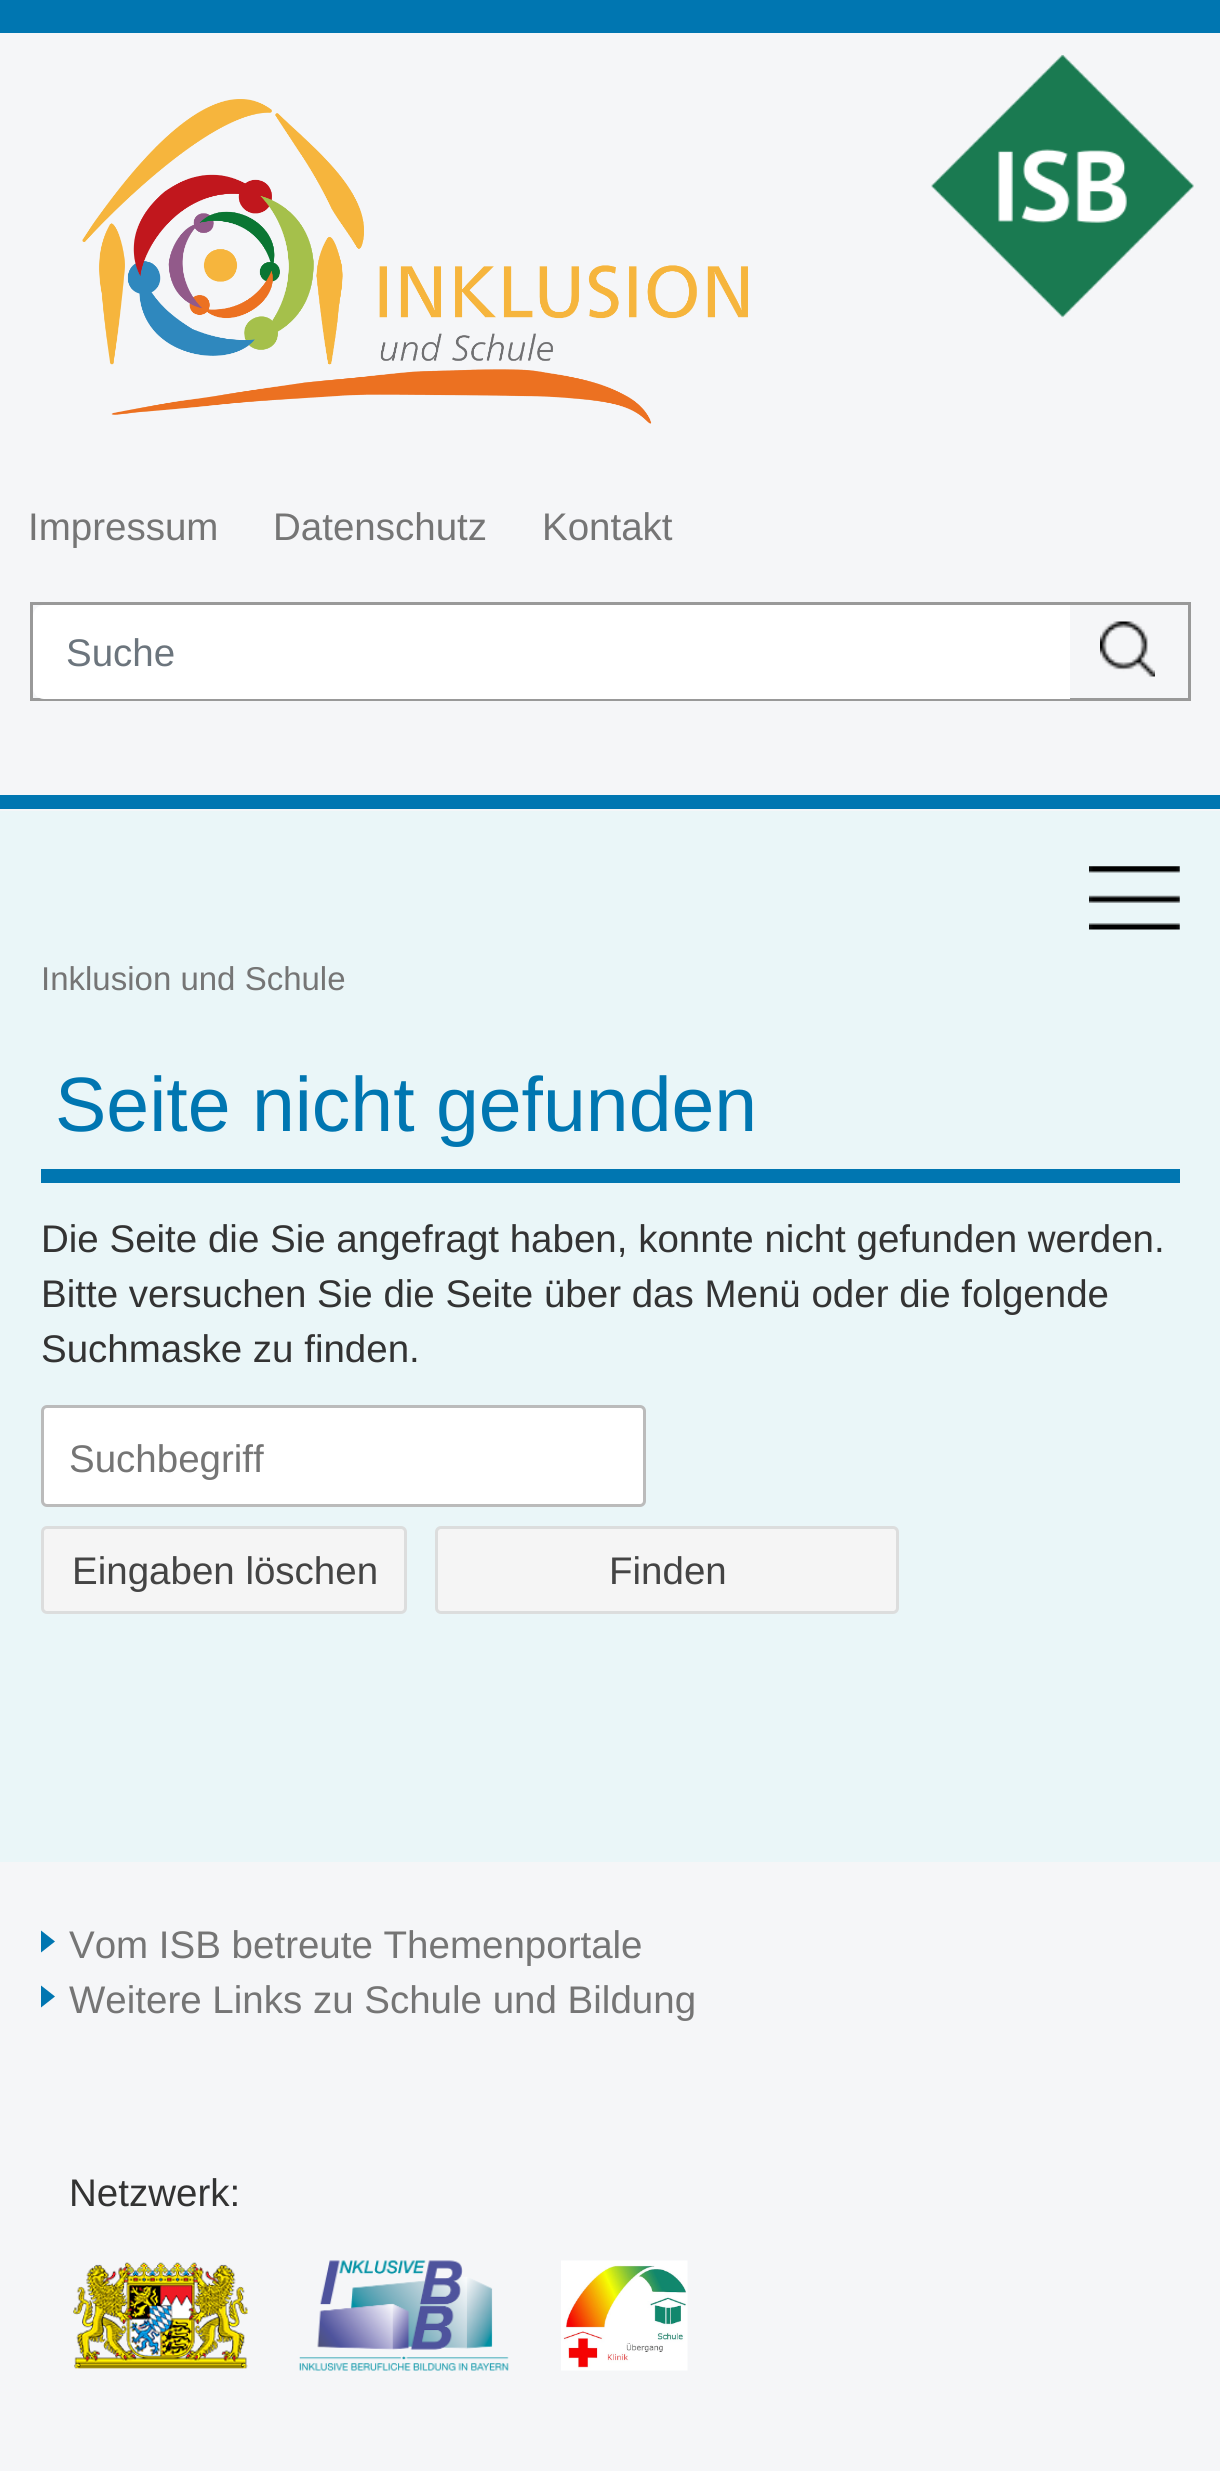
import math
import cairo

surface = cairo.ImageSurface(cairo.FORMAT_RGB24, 1220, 2471)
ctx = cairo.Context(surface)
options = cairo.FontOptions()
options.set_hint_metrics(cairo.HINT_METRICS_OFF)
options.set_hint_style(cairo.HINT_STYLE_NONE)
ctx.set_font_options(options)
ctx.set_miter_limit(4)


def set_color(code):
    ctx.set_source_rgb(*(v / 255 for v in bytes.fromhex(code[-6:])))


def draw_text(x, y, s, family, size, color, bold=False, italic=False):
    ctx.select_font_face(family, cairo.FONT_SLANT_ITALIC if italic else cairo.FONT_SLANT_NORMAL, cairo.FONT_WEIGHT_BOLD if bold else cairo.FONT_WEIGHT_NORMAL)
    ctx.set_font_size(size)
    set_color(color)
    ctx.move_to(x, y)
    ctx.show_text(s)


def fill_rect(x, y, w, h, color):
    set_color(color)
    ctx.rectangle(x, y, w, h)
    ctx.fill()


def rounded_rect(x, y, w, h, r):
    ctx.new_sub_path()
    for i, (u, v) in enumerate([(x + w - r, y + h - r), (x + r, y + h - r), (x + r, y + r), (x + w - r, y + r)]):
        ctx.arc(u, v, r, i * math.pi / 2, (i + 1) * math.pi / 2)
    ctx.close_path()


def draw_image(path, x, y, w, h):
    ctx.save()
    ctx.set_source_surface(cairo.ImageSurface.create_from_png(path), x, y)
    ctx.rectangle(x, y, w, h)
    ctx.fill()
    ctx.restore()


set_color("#eaf6f8")
ctx.paint()
fill_rect(0, 33, 1220, 762, "#f5f6f8")
fill_rect(0, 0, 1220, 33, "#0076b1")
fill_rect(0, 809, 1220, 2, "#f5f6f8")
draw_image("assets/img1.png", 82, 99, 666, 325)
fill_rect(0, 795, 1220, 14, "#0076b1")
draw_image("assets/img2.png", 931, 55, 263, 263)
draw_text(28, 540, "Impressum", "Liberation Sans", 38.5, "#757575")
draw_text(273, 540, "Datenschutz", "Liberation Sans", 38.5, "#757575")
draw_text(542, 540, "Kontakt", "Liberation Sans", 38.5, "#757575")
ctx.rectangle(31.5, 603.5, 1158, 96)
set_color("#999999")
ctx.set_line_width(3)
ctx.stroke()
set_color("#ffffff")
ctx.new_path()
ctx.move_to(44, 605)
ctx.line_to(1070, 605)
ctx.line_to(1070, 699)
ctx.line_to(44, 699)
ctx.curve_to(38, 699, 33, 694, 33, 688)
ctx.line_to(33, 616)
ctx.curve_to(33, 610, 38, 605, 44, 605)
ctx.close_path()
ctx.fill()
draw_text(66, 666, "Suche", "Liberation Sans", 38.5, "#6c757d")
draw_image("assets/img3.png", 1100, 621, 55, 56)
draw_image("assets/img4.png", 1089, 866, 91, 64)
draw_text(41, 990, "Inklusion und Schule", "Liberation Sans", 33, "#757575")
fill_rect(41, 1169, 1139, 14, "#0076b1")
draw_text(55, 1131, "Seite nicht gefunden", "Liberation Sans", 77, "#0076b1")
draw_text(41, 1252, "Die Seite die Sie angefragt haben, konnte nicht gefunden werden.", "Liberation Sans", 38.5, "#333333")
draw_text(41, 1307, "Bitte versuchen Sie die Seite über das Menü oder die folgende", "Liberation Sans", 38.5, "#333333")
draw_text(41, 1362, "Suchmaske zu finden.", "Liberation Sans", 38.5, "#333333")
set_color("#ffffff")
rounded_rect(42.5, 1406.5, 602, 99, 4.5)
ctx.fill_preserve()
set_color("#bbbbbb")
ctx.stroke()
draw_text(69, 1472, "Suchbegriff", "Liberation Sans", 38.5, "#757575")
set_color("#f5f5f5")
rounded_rect(42.5, 1527.5, 363, 85, 4.5)
ctx.fill_preserve()
set_color("#dcdddd")
ctx.stroke()
draw_text(72, 1584, "Eingaben löschen", "Liberation Sans", 38.5, "#444444")
set_color("#f5f5f5")
rounded_rect(436.5, 1527.5, 461, 85, 4.5)
ctx.fill_preserve()
set_color("#dcdddd")
ctx.stroke()
draw_text(609, 1584, "Finden", "Liberation Sans", 38.5, "#444444")
fill_rect(0, 1862, 1220, 609, "#f5f6f8")
set_color("#0076b1")
ctx.new_path()
ctx.move_to(41, 1952.5)
ctx.line_to(41, 1930.5)
ctx.line_to(55, 1941.5)
ctx.close_path()
ctx.fill()
draw_text(69, 1958, "Vom ISB betreute Themenportale", "Liberation Sans", 38.5, "#757575")
set_color("#0076b1")
ctx.new_path()
ctx.move_to(41, 2007.5)
ctx.line_to(41, 1985.5)
ctx.line_to(55, 1996.5)
ctx.close_path()
ctx.fill()
draw_text(69, 2013, "Weitere Links zu Schule und Bildung", "Liberation Sans", 38.5, "#757575")
draw_text(69, 2206, "Netzwerk:", "Liberation Sans", 38.5, "#333333")
draw_image("assets/img5.png", 73, 2262, 175, 107)
draw_image("assets/img6.png", 299, 2260, 210, 111)
draw_image("assets/img7.png", 561, 2260, 127, 111)
surface.write_to_png("output.png")
